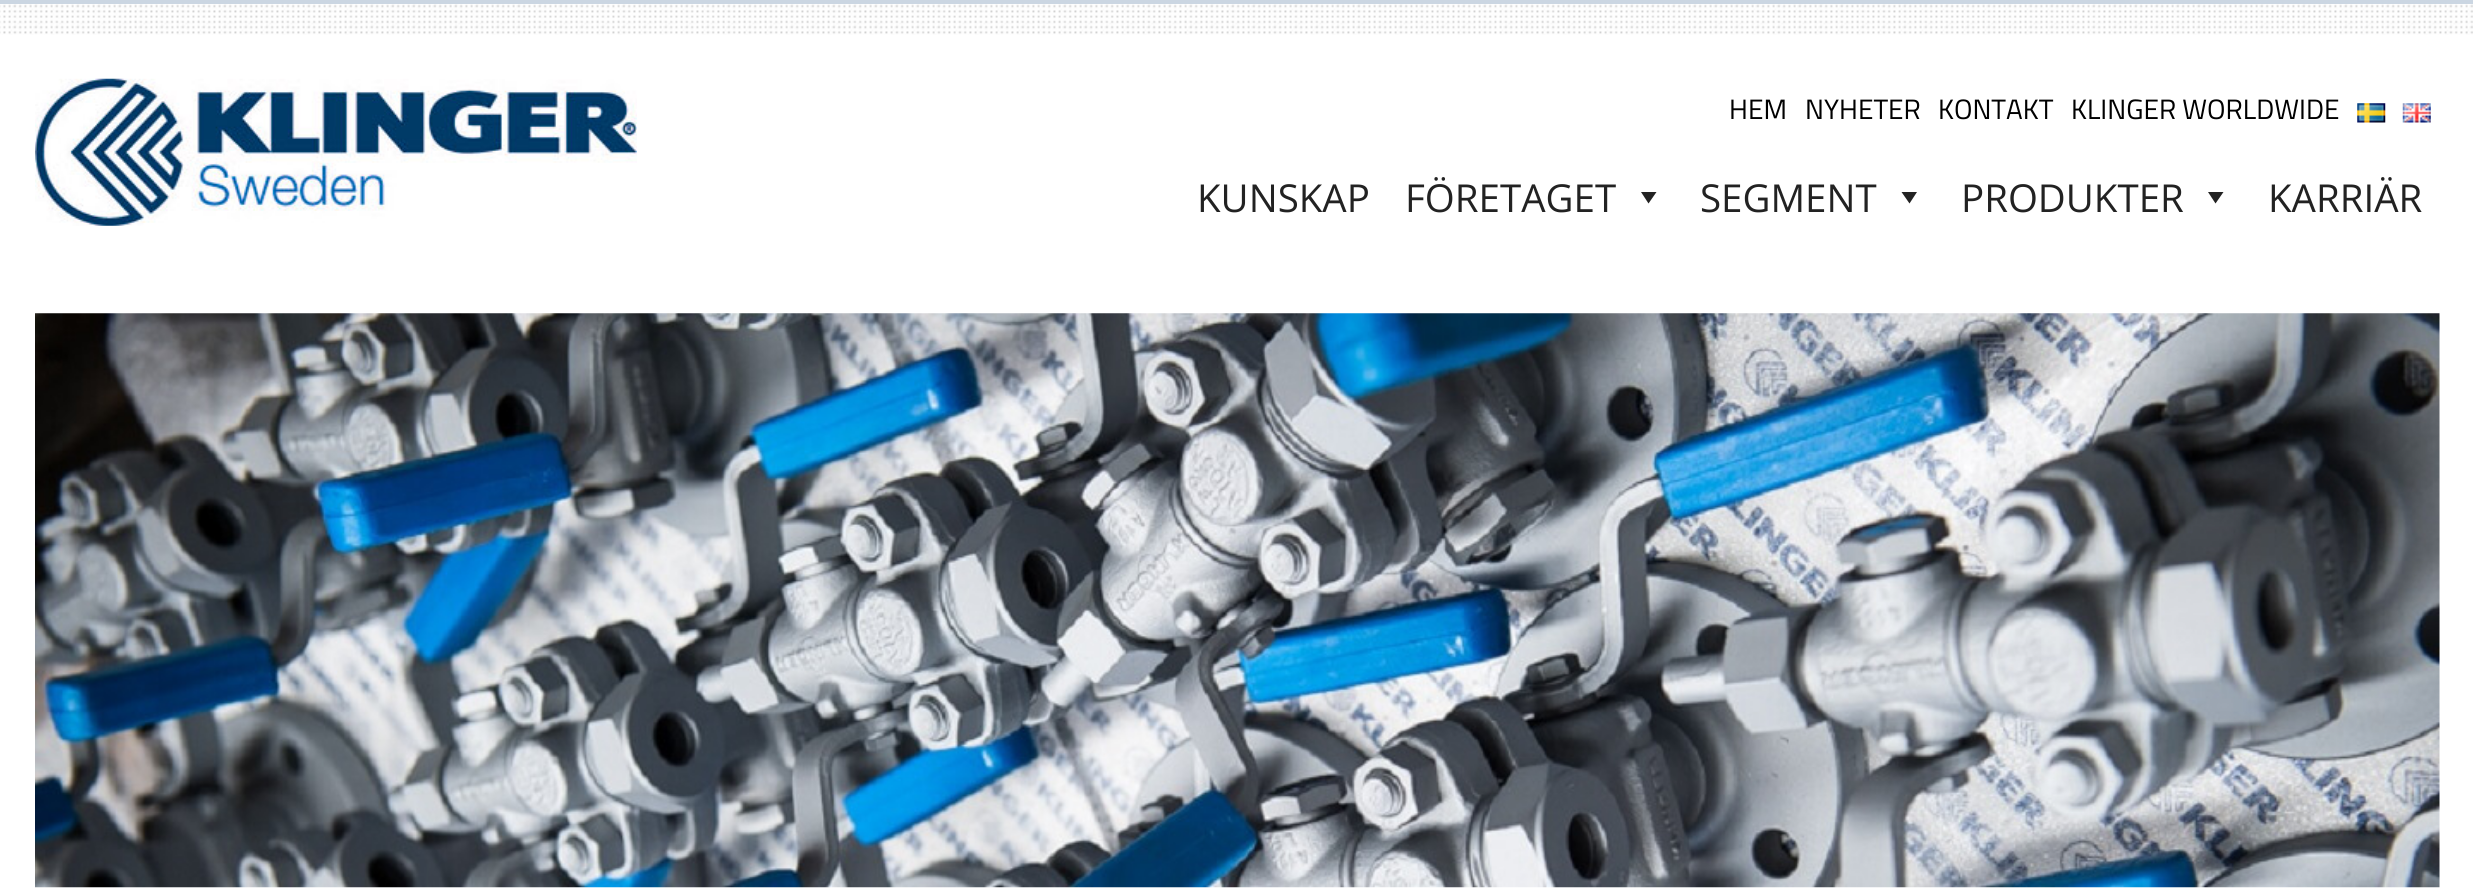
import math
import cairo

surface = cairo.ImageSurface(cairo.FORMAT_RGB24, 2473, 890)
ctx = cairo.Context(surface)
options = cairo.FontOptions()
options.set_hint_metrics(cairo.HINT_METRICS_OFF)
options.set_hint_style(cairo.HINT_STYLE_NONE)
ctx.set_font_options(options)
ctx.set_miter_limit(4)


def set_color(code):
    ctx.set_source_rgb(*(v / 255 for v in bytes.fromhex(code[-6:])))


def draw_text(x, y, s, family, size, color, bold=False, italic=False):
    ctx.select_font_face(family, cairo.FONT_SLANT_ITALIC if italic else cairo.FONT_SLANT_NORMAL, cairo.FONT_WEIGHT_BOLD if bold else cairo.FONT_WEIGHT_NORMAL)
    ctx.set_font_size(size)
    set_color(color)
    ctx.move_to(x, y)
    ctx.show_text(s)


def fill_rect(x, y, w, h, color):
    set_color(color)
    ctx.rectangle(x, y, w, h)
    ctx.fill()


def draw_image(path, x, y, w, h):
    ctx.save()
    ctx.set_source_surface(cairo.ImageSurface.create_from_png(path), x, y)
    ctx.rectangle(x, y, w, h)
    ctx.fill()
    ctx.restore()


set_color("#ffffff")
ctx.paint()
fill_rect(0, 0, 2473, 4, "#cbd6e2")
draw_image("assets/img1.png", 0, 4, 2473, 31)
draw_image("assets/img2.png", 35, 78, 602, 148)
draw_text(1729, 119, "HEM", "Titillium Web", 28, "#000000")
draw_text(1805, 119, "NYHETER", "Titillium Web", 28, "#000000")
draw_text(1938, 119, "KONTAKT", "Titillium Web", 28, "#000000")
draw_text(2071, 119, "KLINGER WORLDWIDE", "Titillium Web", 28, "#000000")
draw_image("assets/img3.png", 2357, 103, 29, 20)
draw_image("assets/img4.png", 2402, 103, 29, 20)
draw_text(1197, 212, "KUNSKAP", "Open Sans", 38.5, "#222222")
draw_text(1405, 212, "FÖRETAGET", "Open Sans", 38.5, "#222222")
ctx.new_path()
ctx.move_to(1656.5, 192)
ctx.line_to(1648.5, 203.5)
ctx.line_to(1641, 192)
ctx.close_path()
ctx.fill()
draw_text(1700, 212, "SEGMENT", "Open Sans", 38.5, "#222222")
ctx.new_path()
ctx.move_to(1917, 192)
ctx.line_to(1909.5, 203.5)
ctx.line_to(1901.5, 192)
ctx.close_path()
ctx.fill()
draw_text(1961, 212, "PRODUKTER", "Open Sans", 38.5, "#222222")
ctx.new_path()
ctx.move_to(2223.5, 192)
ctx.line_to(2215.5, 203.5)
ctx.line_to(2208, 192)
ctx.close_path()
ctx.fill()
draw_text(2268, 212, "KARRIÄR", "Open Sans", 38.5, "#222222")
draw_image("assets/img5.png", 35, 313, 2405, 575)
surface.write_to_png("output.png")
